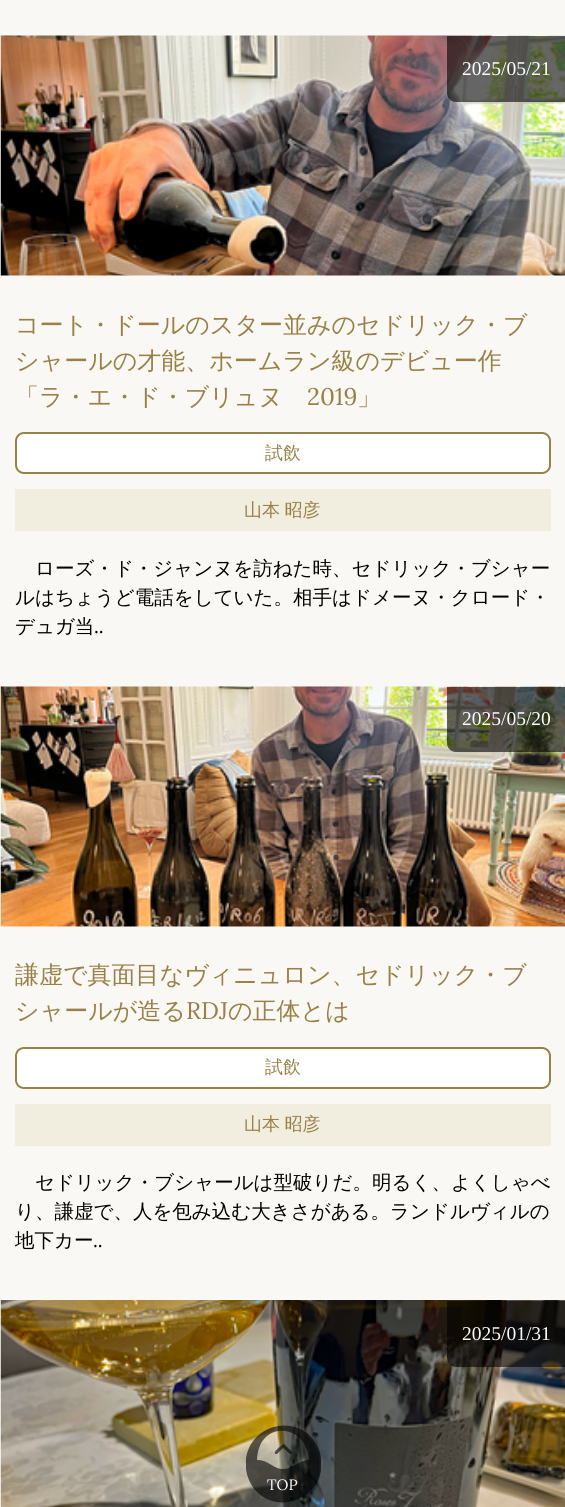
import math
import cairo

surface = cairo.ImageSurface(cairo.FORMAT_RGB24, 565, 1507)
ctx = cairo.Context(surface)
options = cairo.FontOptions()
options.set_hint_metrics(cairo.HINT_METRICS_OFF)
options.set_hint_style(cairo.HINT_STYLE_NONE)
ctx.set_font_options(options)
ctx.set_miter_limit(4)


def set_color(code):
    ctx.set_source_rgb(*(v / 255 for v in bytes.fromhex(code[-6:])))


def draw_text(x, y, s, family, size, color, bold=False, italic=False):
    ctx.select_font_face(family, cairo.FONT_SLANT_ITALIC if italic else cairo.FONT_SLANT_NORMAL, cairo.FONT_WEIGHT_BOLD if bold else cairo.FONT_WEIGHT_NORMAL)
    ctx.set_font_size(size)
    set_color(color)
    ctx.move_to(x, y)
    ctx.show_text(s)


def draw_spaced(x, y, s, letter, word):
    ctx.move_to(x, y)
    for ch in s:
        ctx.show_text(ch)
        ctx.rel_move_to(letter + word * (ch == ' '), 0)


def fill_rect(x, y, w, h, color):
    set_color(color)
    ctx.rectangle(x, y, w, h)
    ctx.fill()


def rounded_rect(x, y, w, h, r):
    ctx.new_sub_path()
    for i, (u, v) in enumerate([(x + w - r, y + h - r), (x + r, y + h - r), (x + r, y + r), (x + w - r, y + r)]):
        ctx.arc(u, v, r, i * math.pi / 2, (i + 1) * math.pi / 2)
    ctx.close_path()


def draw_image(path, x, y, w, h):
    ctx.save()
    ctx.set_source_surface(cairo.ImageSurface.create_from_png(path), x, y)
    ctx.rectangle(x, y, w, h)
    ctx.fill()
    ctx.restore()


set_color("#f9f8f4")
ctx.paint()
fill_rect(0, 36, 565, 240, "#ffffff")
draw_image("assets/img1.png", 0, 35, 565, 241)
ctx.set_source_rgba(0, 0, 0, 0.6)
ctx.new_path()
ctx.move_to(447, 36)
ctx.line_to(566, 36)
ctx.line_to(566, 102)
ctx.line_to(456, 102)
ctx.curve_to(451, 102, 447, 98, 447, 93)
ctx.close_path()
ctx.fill()
draw_text(462, 75, "2025/05/21", "Liberation Serif", 19.5, "#ffffff")
draw_text(15, 333, "コート・ドールのスター並みのセドリック・ブ", "WenQuanYi Zen Hei Medium", 24, "#988046")
draw_text(15, 369, "シャールの才能、ホームラン級のデビュー作", "WenQuanYi Zen Hei Medium", 24, "#988046")
draw_text(15, 405, "「ラ・エ・ド・ブリュヌ", "WenQuanYi Zen Hei Medium", 24, "#988046")
draw_text(307, 405, "2019", "Lora", 24, "#988046")
draw_text(357, 405, "」", "WenQuanYi Zen Hei Medium", 24, "#988046")
set_color("#ffffff")
rounded_rect(16, 433, 534, 40, 8)
ctx.fill_preserve()
set_color("#988046")
ctx.stroke()
draw_text(265, 459, "試飲", "WenQuanYi Zen Hei Medium", 18, "#988046")
fill_rect(15, 489, 536, 42, "#f1eedf")
set_color("#988046")
draw_spaced(244, 516, "山本 昭彦", 0, -1)
draw_text(35, 575, "ローズ・ド・ジャンヌを訪ねた時、セドリック・ブシャー", "WenQuanYi Zen Hei Medium", 19.5, "#000000")
draw_text(15, 604, "ルはちょうど電話をしていた。相手はドメーヌ・クロード・", "WenQuanYi Zen Hei Medium", 19.5, "#000000")
draw_text(15, 633, "デュガ当", "WenQuanYi Zen Hei Medium", 19.5, "#000000")
draw_text(94, 633, "..", "Lora", 19.5, "#000000")
fill_rect(0, 687, 565, 240, "#ffffff")
draw_image("assets/img2.png", 0, 686, 565, 241)
ctx.set_source_rgba(0, 0, 0, 0.6)
ctx.new_path()
ctx.move_to(447, 687)
ctx.line_to(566, 687)
ctx.line_to(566, 752)
ctx.line_to(456, 752)
ctx.curve_to(451, 752, 447, 748, 447, 743)
ctx.close_path()
ctx.fill()
draw_text(462, 725, "2025/05/20", "Liberation Serif", 19.5, "#ffffff")
draw_text(15, 983, "謙虚で真面目なヴィニュロン、セドリック・ブ", "WenQuanYi Zen Hei Medium", 24, "#988046")
draw_text(15, 1019, "シャールが造る", "WenQuanYi Zen Hei Medium", 24, "#988046")
draw_text(186, 1019, "RDJ", "Lora", 24, "#988046")
draw_text(228, 1019, "の正体とは", "WenQuanYi Zen Hei Medium", 24, "#988046")
set_color("#ffffff")
rounded_rect(16, 1048, 534, 40, 8)
ctx.fill_preserve()
set_color("#988046")
ctx.stroke()
draw_text(265, 1073, "試飲", "WenQuanYi Zen Hei Medium", 18, "#988046")
fill_rect(15, 1104, 536, 42, "#f1eedf")
set_color("#988046")
draw_spaced(244, 1130, "山本 昭彦", 0, -1)
draw_text(35, 1189, "セドリック・ブシャールは型破りだ。明るく、よくしゃべ", "WenQuanYi Zen Hei Medium", 19.5, "#000000")
draw_text(15, 1218, "り、謙虚で、人を包み込む大きさがある。ランドルヴィルの", "WenQuanYi Zen Hei Medium", 19.5, "#000000")
draw_text(15, 1247, "地下カー", "WenQuanYi Zen Hei Medium", 19.5, "#000000")
draw_text(93, 1247, "..", "Lora", 19.5, "#000000")
fill_rect(0, 1301, 1, 206, "#ffffff")
draw_image("assets/img3.png", 0, 1300, 565, 207)
ctx.set_source_rgba(0, 0, 0, 0.6)
ctx.new_path()
ctx.move_to(447, 1301)
ctx.line_to(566, 1301)
ctx.line_to(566, 1367)
ctx.line_to(456, 1367)
ctx.curve_to(451, 1367, 447, 1363, 447, 1358)
ctx.close_path()
ctx.fill()
draw_text(462, 1340, "2025/01/31", "Liberation Serif", 19.5, "#ffffff")
ctx.save()
ctx.rectangle(246, 1418, 75, 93)
ctx.clip()
ctx.set_source_rgba(0, 0, 0, 0.6)
ctx.new_path()
ctx.move_to(318, 1448)
ctx.curve_to(303, 1413, 252, 1421, 246, 1458)
ctx.curve_to(245, 1465, 246, 1473, 249, 1480)
ctx.curve_to(264, 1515, 315, 1507, 321, 1470)
ctx.curve_to(322, 1462, 321, 1454, 318, 1448)
ctx.close_path()
ctx.move_to(309, 1460)
ctx.curve_to(299, 1460, 293, 1469, 283, 1469)
ctx.curve_to(273, 1469, 269, 1460, 257, 1460)
ctx.curve_to(258, 1420, 306, 1422, 309, 1460)
ctx.close_path()
ctx.move_to(292, 1452)
ctx.curve_to(292, 1453, 292, 1454, 291, 1454)
ctx.curve_to(290, 1455, 285, 1449, 283, 1448)
ctx.line_to(277, 1454)
ctx.line_to(276, 1454)
ctx.curve_to(271, 1453, 283, 1444, 284, 1444)
ctx.close_path()
ctx.fill()
ctx.restore()
draw_text(267, 1490, "TOP", "Lora", 15, "#ffffff")
surface.write_to_png("output.png")
